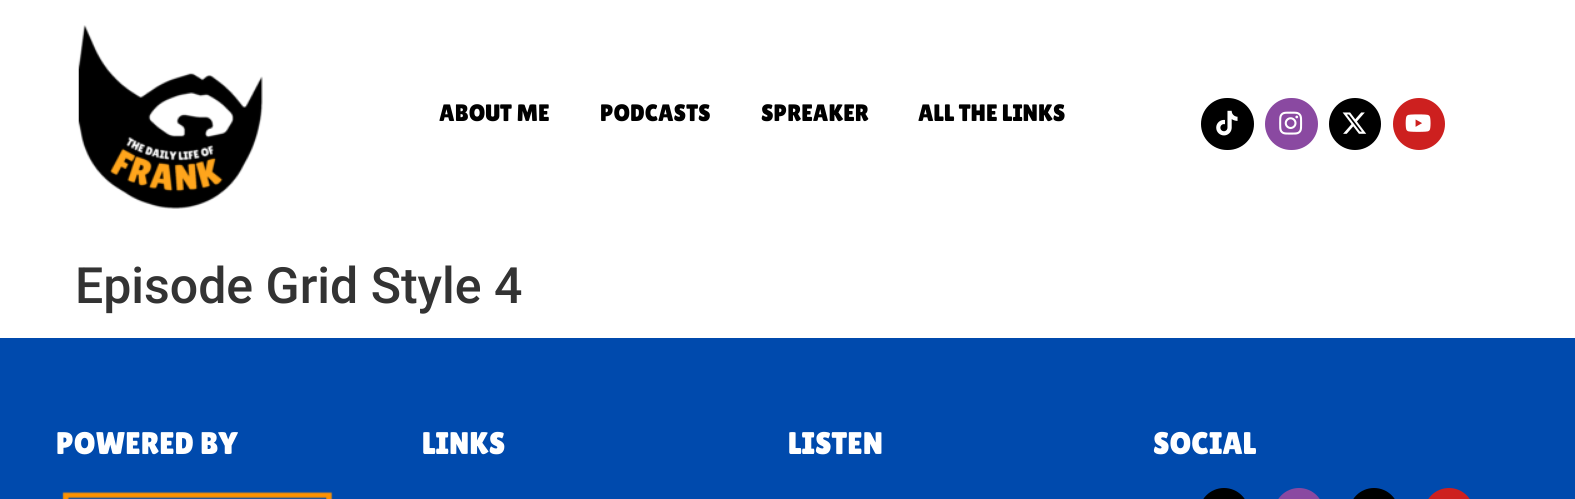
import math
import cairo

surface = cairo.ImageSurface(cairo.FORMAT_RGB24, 1575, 499)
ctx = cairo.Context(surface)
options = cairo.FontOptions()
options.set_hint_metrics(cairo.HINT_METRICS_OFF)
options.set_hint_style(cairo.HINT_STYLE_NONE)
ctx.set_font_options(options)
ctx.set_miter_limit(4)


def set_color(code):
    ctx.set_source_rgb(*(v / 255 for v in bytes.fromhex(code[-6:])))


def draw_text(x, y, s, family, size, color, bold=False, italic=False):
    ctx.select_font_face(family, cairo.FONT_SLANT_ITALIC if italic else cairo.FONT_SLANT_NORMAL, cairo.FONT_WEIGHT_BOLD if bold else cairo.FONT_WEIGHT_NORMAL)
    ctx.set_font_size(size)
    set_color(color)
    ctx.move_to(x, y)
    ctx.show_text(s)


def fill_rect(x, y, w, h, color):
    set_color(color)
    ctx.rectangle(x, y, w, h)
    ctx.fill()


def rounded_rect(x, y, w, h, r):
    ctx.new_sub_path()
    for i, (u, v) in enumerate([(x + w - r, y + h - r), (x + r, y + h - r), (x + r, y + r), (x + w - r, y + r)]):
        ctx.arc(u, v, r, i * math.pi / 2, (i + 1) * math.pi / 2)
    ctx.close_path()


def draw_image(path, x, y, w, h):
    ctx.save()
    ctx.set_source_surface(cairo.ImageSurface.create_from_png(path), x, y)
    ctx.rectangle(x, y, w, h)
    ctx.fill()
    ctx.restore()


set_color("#ffffff")
ctx.paint()
draw_image("assets/img1.png", 78, 25, 185, 184)
draw_text(439, 121, "ABOUT ME", "Lilita One", 23.75, "#000000")
draw_text(600, 121, "PODCASTS", "Lilita One", 23.75, "#000000")
draw_text(761, 121, "SPREAKER", "Lilita One", 23.75, "#000000")
draw_text(918, 121, "ALL THE LINKS", "Lilita One", 23.75, "#000000")
rounded_rect(1201, 98, 53, 52, 26)
ctx.fill()
draw_image("assets/img2.png", 1216, 110, 22, 26)
set_color("#8a49a1")
rounded_rect(1265, 98, 53, 52, 26)
ctx.fill()
draw_image("assets/img3.png", 1279, 111, 24, 24)
set_color("#000000")
ctx.arc(1355, 124, 26, 0, 2 * math.pi)
ctx.fill()
draw_image("assets/img4.png", 1342, 112, 25, 22)
set_color("#cd201f")
ctx.arc(1419, 124, 26, 0, 2 * math.pi)
ctx.fill()
draw_image("assets/img5.png", 1405, 114, 26, 18)
draw_text(75, 303, "Episode Grid Style 4", "Roboto Medium", 50, "#333333")
fill_rect(0, 338, 1575, 161, "#004aad")
draw_text(56, 454, "POWERED BY", "Lilita One", 31.25, "#ffffff")
draw_image("assets/img6.png", 62, 491, 271, 8)
draw_text(422, 454, "LINKS", "Lilita One", 31.25, "#ffffff")
draw_text(788, 454, "LISTEN", "Lilita One", 31.25, "#ffffff")
draw_text(1153, 454, "SOCIAL", "Lilita One", 31.25, "#ffffff")
set_color("#000000")
rounded_rect(1199, 488, 50, 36, 25)
ctx.fill()
set_color("#8a49a1")
rounded_rect(1274, 488, 50, 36, 25)
ctx.fill()
set_color("#000000")
rounded_rect(1349, 488, 50, 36, 25)
ctx.fill()
set_color("#cd201f")
rounded_rect(1424, 488, 50, 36, 25)
ctx.fill()
surface.write_to_png("output.png")
